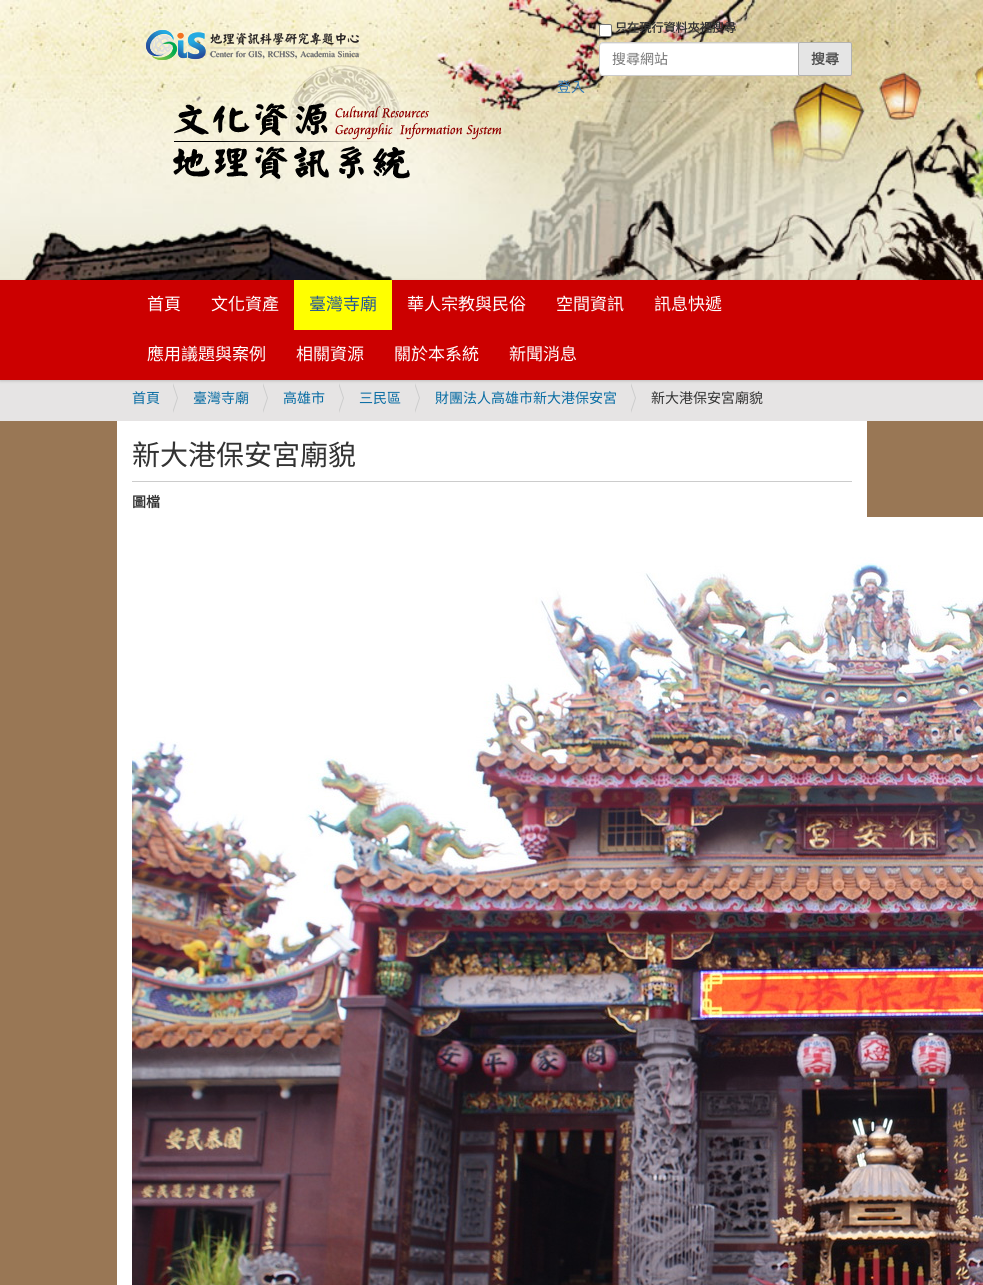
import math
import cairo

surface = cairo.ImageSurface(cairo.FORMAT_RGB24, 983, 1285)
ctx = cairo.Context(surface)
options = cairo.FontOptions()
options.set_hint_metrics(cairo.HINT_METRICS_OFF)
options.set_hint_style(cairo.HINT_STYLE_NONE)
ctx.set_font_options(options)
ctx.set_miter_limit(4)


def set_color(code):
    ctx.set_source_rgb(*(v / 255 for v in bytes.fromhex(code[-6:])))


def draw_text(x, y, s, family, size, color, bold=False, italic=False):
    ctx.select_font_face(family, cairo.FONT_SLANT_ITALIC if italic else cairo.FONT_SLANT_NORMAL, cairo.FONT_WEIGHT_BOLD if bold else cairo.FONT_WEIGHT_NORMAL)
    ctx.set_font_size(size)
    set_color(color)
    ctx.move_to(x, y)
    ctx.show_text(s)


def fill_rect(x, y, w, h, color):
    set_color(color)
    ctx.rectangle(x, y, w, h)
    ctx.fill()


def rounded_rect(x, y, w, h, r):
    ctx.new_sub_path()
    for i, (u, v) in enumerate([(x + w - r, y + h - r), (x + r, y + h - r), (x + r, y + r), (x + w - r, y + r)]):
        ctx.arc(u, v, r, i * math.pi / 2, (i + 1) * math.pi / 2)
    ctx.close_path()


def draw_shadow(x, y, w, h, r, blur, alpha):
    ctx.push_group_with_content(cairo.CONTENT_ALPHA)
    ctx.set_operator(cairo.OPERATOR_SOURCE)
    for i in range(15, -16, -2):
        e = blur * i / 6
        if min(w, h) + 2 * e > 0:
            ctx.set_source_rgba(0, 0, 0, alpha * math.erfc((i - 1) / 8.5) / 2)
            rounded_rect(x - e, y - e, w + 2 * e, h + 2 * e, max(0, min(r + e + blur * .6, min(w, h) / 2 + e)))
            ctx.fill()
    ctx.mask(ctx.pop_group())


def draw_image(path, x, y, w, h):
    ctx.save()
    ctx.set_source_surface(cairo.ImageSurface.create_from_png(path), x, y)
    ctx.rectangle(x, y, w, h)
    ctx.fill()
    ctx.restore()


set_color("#997755")
ctx.paint()
draw_image("assets/img1.png", 0, 0, 983, 280)
draw_image("assets/img2.png", 146, 30, 213, 30)
set_color("#ffffff")
rounded_rect(599.5, 24.5, 12, 12, 1.5)
ctx.fill_preserve()
set_color("#767676")
ctx.set_line_width(1)
ctx.stroke()
draw_text(615, 32, "只在現行資料夾裡搜尋", "Noto Sans CJK TC", 12.1, "#333333", bold=True)
set_color("#ffffff")
ctx.new_path()
ctx.move_to(603, 42)
ctx.line_to(799, 42)
ctx.line_to(799, 76)
ctx.line_to(603, 76)
ctx.curve_to(601, 76, 599, 74, 599, 72)
ctx.line_to(599, 46)
ctx.curve_to(599, 44, 601, 42, 603, 42)
ctx.close_path()
ctx.fill()
set_color("#ececec")
ctx.new_path()
ctx.move_to(603, 44)
ctx.line_to(798, 44)
ctx.line_to(798, 43)
ctx.line_to(603, 43)
ctx.curve_to(601, 43, 600, 45, 600, 47)
ctx.curve_to(600, 45, 601, 44, 603, 44)
ctx.close_path()
ctx.fill()
ctx.new_path()
ctx.move_to(603, 42.5)
ctx.line_to(798.5, 42.5)
ctx.line_to(798.5, 75.5)
ctx.line_to(603, 75.5)
ctx.curve_to(601, 75.5, 599.5, 74, 599.5, 72)
ctx.line_to(599.5, 46)
ctx.curve_to(599.5, 44, 601, 42.5, 603, 42.5)
ctx.close_path()
set_color("#cccccc")
ctx.stroke()
draw_text(612, 64, "搜尋網站", "Noto Sans CJK TC", 14, "#777777")
set_color("#e5e5e5")
rounded_rect(798.5, 42.5, 53, 33, 1.5)
ctx.fill_preserve()
set_color("#b2b2b2")
ctx.stroke()
draw_text(811, 64, "搜尋", "Noto Sans CJK TC", 14, "#4d4d4d", bold=True)
draw_image("assets/img3.png", 173, 65, 329, 114)
draw_text(557, 92, "登入", "Noto Sans CJK TC", 14, "#337ab7")
fill_rect(0, 380, 983, 41, "#e6e4e4")
set_color("#000000")
draw_shadow(0, 281, 983, 100, 0, 1.5, 0.17)
fill_rect(0, 280, 983, 100, "#cc0000")
draw_text(147, 310, "首頁", "Noto Sans CJK TC", 17, "#ffffff")
draw_text(211, 310, "文化資產", "Noto Sans CJK TC", 17, "#ffffff")
fill_rect(294, 280, 98, 50, "#ffff00")
draw_text(309, 310, "臺灣寺廟", "Noto Sans CJK TC", 17, "#225599")
draw_text(407, 310, "華人宗教與民俗", "Noto Sans CJK TC", 17, "#ffffff")
draw_text(556, 310, "空間資訊", "Noto Sans CJK TC", 17, "#ffffff")
draw_text(654, 310, "訊息快遞", "Noto Sans CJK TC", 17, "#ffffff")
draw_text(147, 360, "應用議題與案例", "Noto Sans CJK TC", 17, "#ffffff")
draw_text(296, 360, "相關資源", "Noto Sans CJK TC", 17, "#ffffff")
draw_text(394, 360, "關於本系統", "Noto Sans CJK TC", 17, "#ffffff")
draw_text(509, 360, "新聞消息", "Noto Sans CJK TC", 17, "#ffffff")
draw_text(132, 403, "首頁", "Noto Sans CJK TC", 14, "#086ca3")
set_color("#cccccc")
ctx.new_path()
ctx.move_to(173, 413)
ctx.line_to(173, 383)
ctx.line_to(178, 398)
ctx.close_path()
ctx.fill()
set_color("#e6e4e4")
ctx.new_path()
ctx.move_to(172, 413)
ctx.line_to(172, 383)
ctx.line_to(177, 398)
ctx.close_path()
ctx.fill()
draw_text(193, 403, "臺灣寺廟", "Noto Sans CJK TC", 14, "#086ca3")
set_color("#cccccc")
ctx.new_path()
ctx.move_to(263, 413)
ctx.line_to(263, 383)
ctx.line_to(268, 398)
ctx.close_path()
ctx.fill()
set_color("#e6e4e4")
ctx.new_path()
ctx.move_to(262, 413)
ctx.line_to(262, 383)
ctx.line_to(267, 398)
ctx.close_path()
ctx.fill()
draw_text(283, 403, "高雄市", "Noto Sans CJK TC", 14, "#086ca3")
set_color("#cccccc")
ctx.new_path()
ctx.move_to(339, 413)
ctx.line_to(339, 383)
ctx.line_to(344, 398)
ctx.close_path()
ctx.fill()
set_color("#e6e4e4")
ctx.new_path()
ctx.move_to(338, 413)
ctx.line_to(338, 383)
ctx.line_to(343, 398)
ctx.close_path()
ctx.fill()
draw_text(359, 403, "三民區", "Noto Sans CJK TC", 14, "#086ca3")
set_color("#cccccc")
ctx.new_path()
ctx.move_to(415, 413)
ctx.line_to(415, 383)
ctx.line_to(420, 398)
ctx.close_path()
ctx.fill()
set_color("#e6e4e4")
ctx.new_path()
ctx.move_to(414, 413)
ctx.line_to(414, 383)
ctx.line_to(419, 398)
ctx.close_path()
ctx.fill()
draw_text(435, 403, "財團法人高雄市新大港保安宮", "Noto Sans CJK TC", 14, "#086ca3")
set_color("#cccccc")
ctx.new_path()
ctx.move_to(631, 413)
ctx.line_to(631, 383)
ctx.line_to(636, 398)
ctx.close_path()
ctx.fill()
set_color("#e6e4e4")
ctx.new_path()
ctx.move_to(630, 413)
ctx.line_to(630, 383)
ctx.line_to(635, 398)
ctx.close_path()
ctx.fill()
draw_text(651, 403, "新大港保安宮廟貌", "Noto Sans CJK TC", 14, "#333333")
fill_rect(117, 421, 750, 864, "#ffffff")
fill_rect(132, 481, 720, 1, "#cccccc")
draw_text(132, 465, "新大港保安宮廟貌", "Noto Sans CJK TC", 28, "#333333")
draw_text(132, 507, "圖檔", "Noto Sans CJK TC", 14, "#333333", bold=True)
draw_image("assets/img4.png", 132, 517, 851, 768)
surface.write_to_png("output.png")
